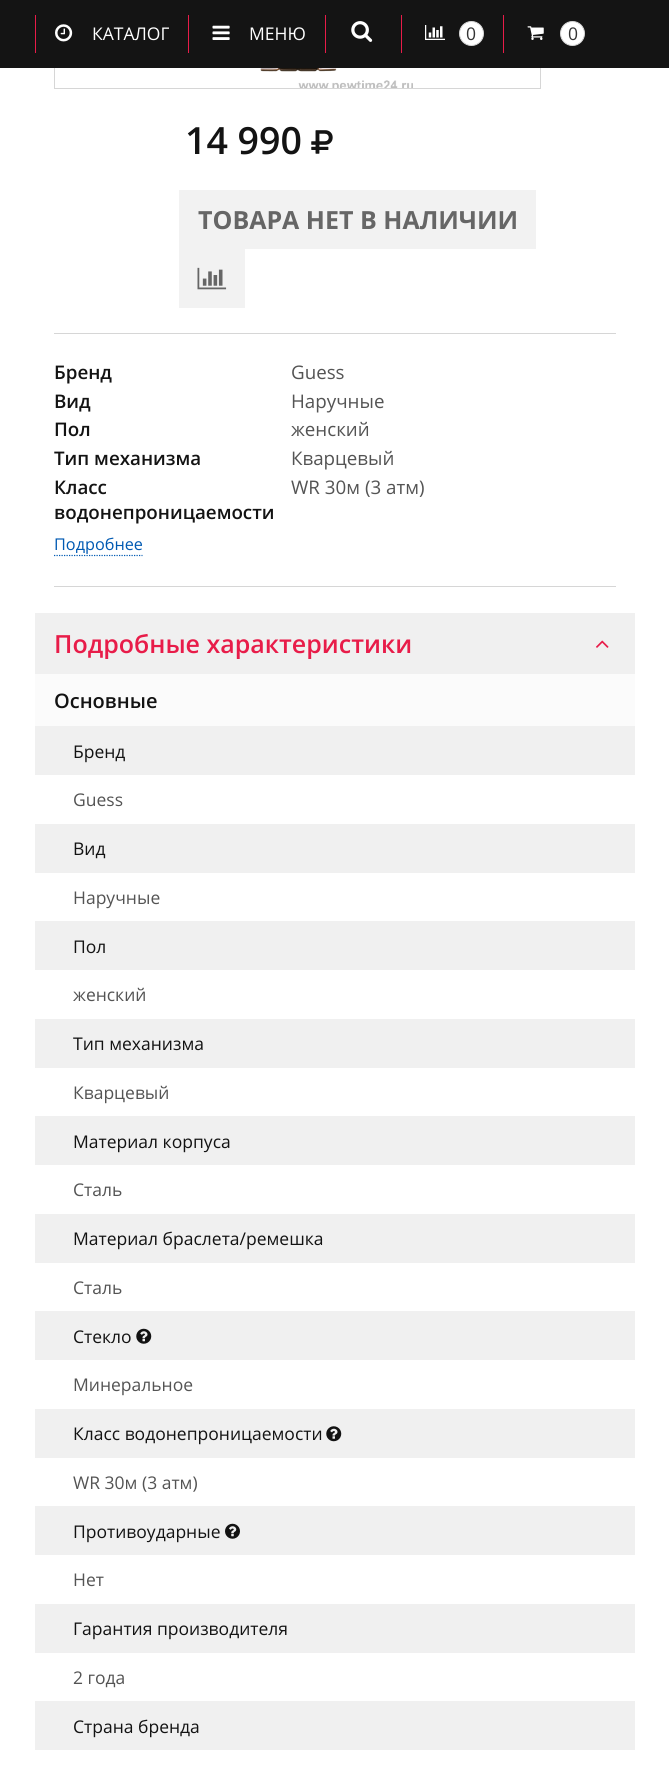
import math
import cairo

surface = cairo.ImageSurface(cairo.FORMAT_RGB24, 669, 1767)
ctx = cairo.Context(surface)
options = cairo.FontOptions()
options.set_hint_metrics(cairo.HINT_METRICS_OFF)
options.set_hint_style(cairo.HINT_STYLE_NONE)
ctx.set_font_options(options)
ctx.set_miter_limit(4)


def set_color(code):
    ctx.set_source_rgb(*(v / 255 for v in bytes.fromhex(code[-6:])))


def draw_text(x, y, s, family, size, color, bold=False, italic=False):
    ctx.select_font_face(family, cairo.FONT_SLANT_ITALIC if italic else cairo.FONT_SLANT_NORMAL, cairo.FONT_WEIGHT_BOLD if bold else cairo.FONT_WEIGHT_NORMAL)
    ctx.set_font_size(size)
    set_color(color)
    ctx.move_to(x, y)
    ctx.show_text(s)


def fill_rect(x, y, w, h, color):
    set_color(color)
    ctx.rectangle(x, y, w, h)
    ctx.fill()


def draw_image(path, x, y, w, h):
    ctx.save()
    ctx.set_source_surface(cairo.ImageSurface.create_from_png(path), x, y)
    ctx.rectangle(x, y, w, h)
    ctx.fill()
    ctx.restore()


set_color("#ffffff")
ctx.paint()
ctx.rectangle(54.5, -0.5, 486, 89)
set_color("#d6d6d6")
ctx.set_line_width(1)
ctx.stroke()
fill_rect(0, 0, 669, 68, "#141414")
fill_rect(188, 15, 1, 38, "#e81c49")
fill_rect(35, 15, 1, 38, "#e81c49")
draw_image("assets/img1.png", 55, 24, 18, 18)
draw_text(92, 40, "КАТАЛОГ", "Open Sans", 17.5, "#ffffff")
fill_rect(325, 15, 1, 38, "#e81c49")
draw_image("assets/img2.png", 212, 25, 18, 15)
draw_text(249, 40, "МЕНЮ", "Open Sans", 17.5, "#ffffff")
draw_image("assets/img3.png", 351, 21, 22, 21)
fill_rect(401, 15, 1, 38, "#e81c49")
draw_image("assets/img4.png", 425, 25, 20, 15)
set_color("#ffffff")
ctx.arc(471.5, 33.5, 12, 0, 2 * math.pi)
ctx.fill_preserve()
set_color("#d6d6d6")
ctx.stroke()
draw_text(466, 40, "0", "Open Sans", 17.5, "#333333")
fill_rect(503, 15, 1, 38, "#e81c49")
draw_image("assets/img5.png", 527, 26, 17, 14)
set_color("#ffffff")
ctx.arc(572.5, 33.5, 12, 0, 2 * math.pi)
ctx.fill_preserve()
set_color("#d6d6d6")
ctx.stroke()
draw_text(568, 40, "0", "Open Sans", 17.5, "#333333")
draw_image("assets/img6.png", 243, 68, 170, 20)
draw_text(185, 154, "14 990", "Open Sans SemiBold", 37.5, "#131313")
draw_image("assets/img7.png", 311, 130, 22, 24)
fill_rect(179, 190, 357, 59, "#f2f2f2")
draw_text(198, 229, "ТОВАРА НЕТ В НАЛИЧИИ", "Open Sans", 25, "#666666", bold=True)
fill_rect(179, 249, 66, 59, "#f2f2f2")
draw_image("assets/img8.png", 197, 267, 30, 23)
fill_rect(54, 333, 562, 1, "#d6d6d6")
draw_text(54, 379, "Бренд", "Open Sans SemiBold", 18.75, "#131313")
draw_text(291, 379, "Guess", "Open Sans", 18.75, "#545454")
draw_text(54, 408, "Вид", "Open Sans SemiBold", 18.75, "#131313")
draw_text(291, 408, "Наручные", "Open Sans", 18.75, "#545454")
draw_text(54, 436, "Пол", "Open Sans SemiBold", 18.75, "#131313")
draw_text(291, 436, "женский", "Open Sans", 18.75, "#545454")
draw_text(54, 465, "Тип механизма", "Open Sans SemiBold", 18.75, "#131313")
draw_text(291, 465, "Кварцевый", "Open Sans", 18.75, "#545454")
draw_text(54, 494, "Класс", "Open Sans SemiBold", 18.75, "#131313")
draw_text(54, 519, "водонепроницаемости", "Open Sans SemiBold", 18.75, "#131313")
draw_text(291, 494, "WR 30м (3 атм)", "Open Sans", 18.75, "#545454")
draw_text(54, 550, "Подробнее", "Open Sans", 16.25, "#0059b2")
ctx.new_path()
ctx.move_to(54, 555.5)
ctx.line_to(142.5, 555.5)
ctx.set_line_width(1.2)
ctx.set_dash([1.25, 1.25])
ctx.stroke()
fill_rect(54, 586, 562, 1, "#d6d6d6")
fill_rect(35, 613, 600, 61, "#f0f0f0")
draw_text(54, 653, "Подробные характеристики", "Open Sans SemiBold", 25, "#e81c49")
draw_image("assets/img9.png", 596, 640, 13, 8)
fill_rect(35, 674, 600, 52, "#fbfbfb")
draw_text(54, 708, "Основные", "Open Sans SemiBold", 20, "#131313")
fill_rect(35, 726, 600, 49, "#f0f0f0")
draw_text(73, 758, "Бренд", "Open Sans", 17.5, "#131313")
draw_text(73, 806, "Guess", "Open Sans", 17.5, "#545454")
fill_rect(35, 824, 600, 49, "#f0f0f0")
draw_text(73, 855, "Вид", "Open Sans", 17.5, "#131313")
draw_text(73, 904, "Наручные", "Open Sans", 17.5, "#545454")
fill_rect(35, 921, 600, 49, "#f0f0f0")
draw_text(73, 953, "Пол", "Open Sans", 17.5, "#131313")
draw_text(73, 1001, "женский", "Open Sans", 17.5, "#545454")
fill_rect(35, 1019, 600, 49, "#f0f0f0")
draw_text(73, 1050, "Тип механизма", "Open Sans", 17.5, "#131313")
draw_text(73, 1099, "Кварцевый", "Open Sans", 17.5, "#545454")
fill_rect(35, 1116, 600, 49, "#f0f0f0")
draw_text(73, 1148, "Материал корпуса", "Open Sans", 17.5, "#131313")
draw_text(73, 1196, "Сталь", "Open Sans", 17.5, "#545454")
fill_rect(35, 1214, 600, 49, "#f0f0f0")
draw_text(73, 1245, "Материал браслета/ремешка", "Open Sans", 17.5, "#131313")
draw_text(73, 1294, "Сталь", "Open Sans", 17.5, "#545454")
fill_rect(35, 1311, 600, 49, "#f0f0f0")
draw_text(73, 1343, "Стекло", "Open Sans", 17.5, "#131313")
draw_image("assets/img10.png", 136, 1328, 16, 16)
draw_text(73, 1391, "Минеральное", "Open Sans", 17.5, "#545454")
fill_rect(35, 1409, 600, 49, "#f0f0f0")
draw_text(73, 1440, "Класс водонепроницаемости", "Open Sans", 17.5, "#131313")
draw_image("assets/img11.png", 326, 1426, 16, 16)
draw_text(73, 1489, "WR 30м (3 атм)", "Open Sans", 17.5, "#545454")
fill_rect(35, 1506, 600, 49, "#f0f0f0")
draw_text(73, 1538, "Противоударные", "Open Sans", 17.5, "#131313")
draw_image("assets/img12.png", 225, 1523, 15, 16)
draw_text(73, 1586, "Нет", "Open Sans", 17.5, "#545454")
fill_rect(35, 1604, 600, 49, "#f0f0f0")
draw_text(73, 1635, "Гарантия производителя", "Open Sans", 17.5, "#131313")
draw_text(73, 1684, "2 года", "Open Sans", 17.5, "#545454")
fill_rect(35, 1701, 600, 49, "#f0f0f0")
draw_text(73, 1733, "Страна бренда", "Open Sans", 17.5, "#131313")
surface.write_to_png("output.png")
